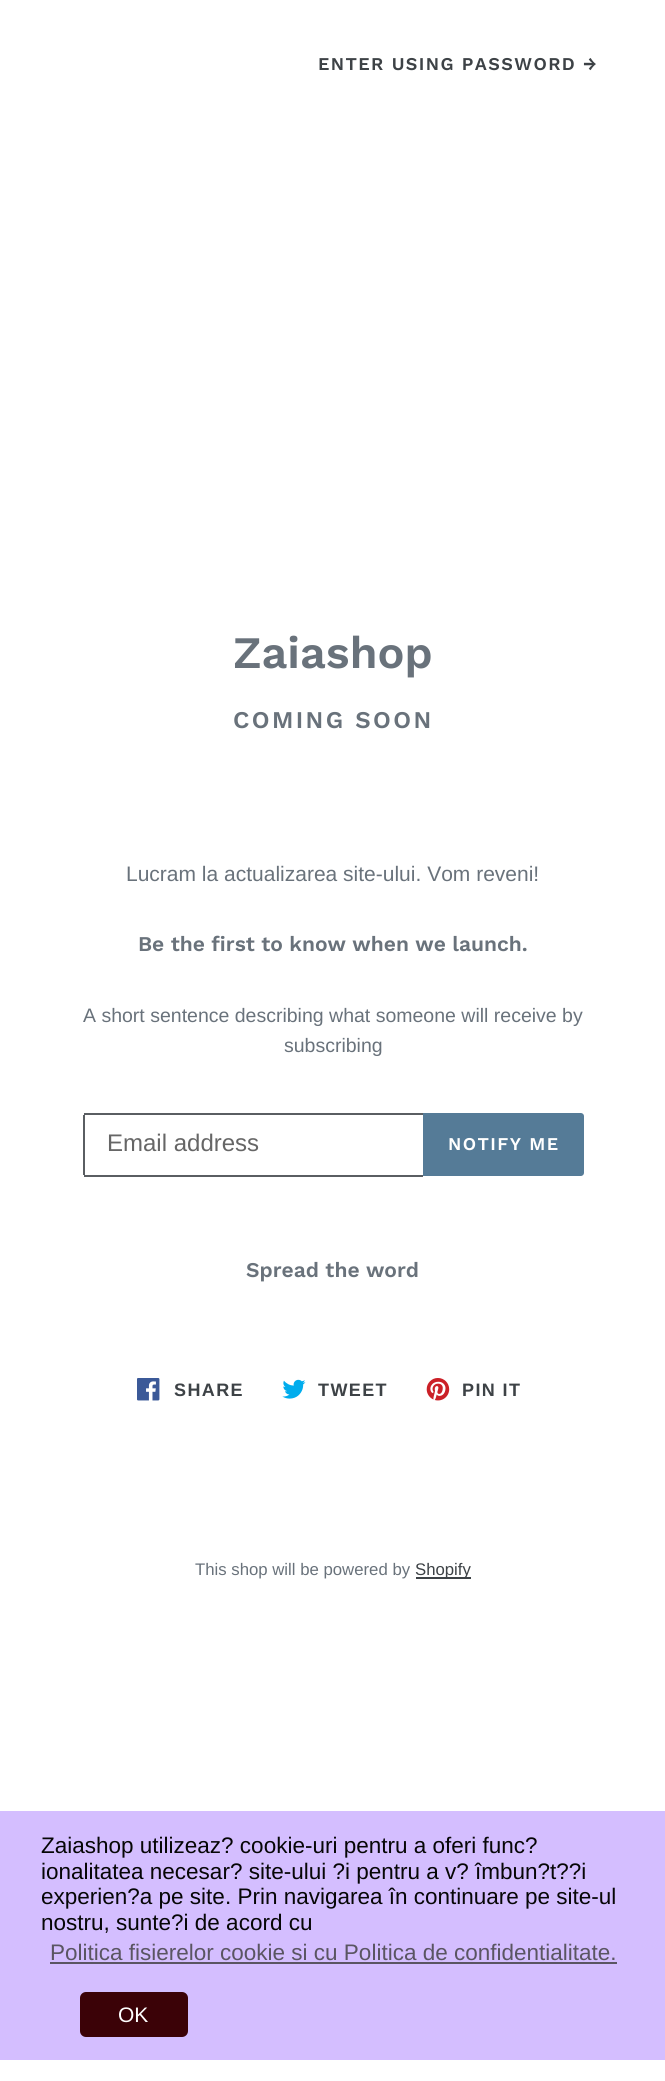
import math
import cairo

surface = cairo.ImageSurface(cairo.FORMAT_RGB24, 665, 2081)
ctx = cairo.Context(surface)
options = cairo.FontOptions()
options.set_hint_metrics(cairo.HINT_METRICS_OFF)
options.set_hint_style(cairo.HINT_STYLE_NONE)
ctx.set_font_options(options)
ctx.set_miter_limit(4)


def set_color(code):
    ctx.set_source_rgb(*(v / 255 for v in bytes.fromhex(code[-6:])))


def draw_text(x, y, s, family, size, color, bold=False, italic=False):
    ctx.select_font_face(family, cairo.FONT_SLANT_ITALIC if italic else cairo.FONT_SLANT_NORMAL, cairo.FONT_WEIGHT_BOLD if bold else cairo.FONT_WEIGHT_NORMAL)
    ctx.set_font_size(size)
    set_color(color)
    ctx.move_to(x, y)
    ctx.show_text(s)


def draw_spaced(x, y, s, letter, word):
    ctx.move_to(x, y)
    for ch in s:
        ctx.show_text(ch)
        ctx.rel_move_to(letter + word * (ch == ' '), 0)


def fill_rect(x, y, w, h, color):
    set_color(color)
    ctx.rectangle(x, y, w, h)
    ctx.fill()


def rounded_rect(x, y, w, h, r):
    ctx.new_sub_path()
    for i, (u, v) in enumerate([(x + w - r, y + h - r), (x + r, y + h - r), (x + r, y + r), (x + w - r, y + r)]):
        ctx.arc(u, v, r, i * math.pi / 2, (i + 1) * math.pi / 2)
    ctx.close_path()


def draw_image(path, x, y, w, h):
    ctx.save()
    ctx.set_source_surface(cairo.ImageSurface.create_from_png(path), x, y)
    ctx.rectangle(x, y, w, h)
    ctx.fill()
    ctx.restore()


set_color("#ffffff")
ctx.paint()
ctx.select_font_face("Work Sans SemiBold")
ctx.set_font_size(18)
set_color("#3d4246")
draw_spaced(318, 70, "ENTER USING PASSWORD →", 1.4, 0)
draw_text(233, 668, "Zaiashop", "Work Sans SemiBold", 45, "#69727b")
ctx.set_font_size(24)
draw_spaced(233, 728, "COMING SOON", 2.4, 0)
draw_text(126, 881, "Lucram la actualizarea site-ului. Vom reveni!", "Liberation Sans", 21, "#69727b")
draw_text(138, 951, "Be the first to know when we launch.", "Work Sans SemiBold", 21, "#69727b")
draw_text(83, 1022, "A short sentence describing what someone will receive by", "Liberation Sans", 19.5, "#69727b")
draw_text(284, 1052, "subscribing", "Liberation Sans", 19.5, "#69727b")
fill_rect(84, 1113, 339, 2, "#5a5e62")
fill_rect(84, 1175, 339, 2, "#5a5e62")
fill_rect(83, 1115, 2, 60, "#5a5e62")
draw_text(107, 1151, "Email address", "Liberation Sans", 24, "#666666")
set_color("#557b97")
ctx.new_path()
ctx.move_to(423, 1113)
ctx.line_to(581, 1113)
ctx.curve_to(582.5, 1113, 584, 1114.5, 584, 1116)
ctx.line_to(584, 1173)
ctx.curve_to(584, 1174.5, 582.5, 1176, 581, 1176)
ctx.line_to(423, 1176)
ctx.close_path()
ctx.fill()
ctx.select_font_face("Work Sans SemiBold")
ctx.set_font_size(18)
set_color("#ffffff")
draw_spaced(448, 1150, "NOTIFY ME", 1.4, 0)
draw_text(246, 1277, "Spread the word", "Work Sans SemiBold", 21, "#69727b")
draw_image("assets/img1.png", 137, 1378, 23, 23)
ctx.select_font_face("Liberation Sans", cairo.FONT_SLANT_NORMAL, cairo.FONT_WEIGHT_BOLD)
ctx.set_font_size(18)
set_color("#3d4246")
draw_spaced(174, 1396, "SHARE", 1.4, 0)
draw_image("assets/img2.png", 282, 1379, 24, 20)
draw_spaced(318, 1396, "TWEET", 1.4, 0)
draw_image("assets/img3.png", 426, 1378, 24, 23)
draw_spaced(462, 1396, "PIN IT", 1.4, 0)
draw_text(195, 1575, "This shop will be powered by", "Liberation Sans", 16.75, "#69727b")
fill_rect(416, 1577, 55, 2, "#3d4246")
draw_text(415, 1575, "Shopify", "Liberation Sans", 16.75, "#3d4246")
fill_rect(0, 1811, 665, 249, "#d4beff")
draw_text(41, 1853, "Zaiashop utilizeaz? cookie-uri pentru a oferi func?", "Liberation Sans", 22.5, "#060606")
draw_text(41, 1879, "ionalitatea necesar? site-ului ?i pentru a v? îmbun?t??i", "Liberation Sans", 22.5, "#060606")
draw_text(41, 1904, "experien?a pe site. Prin navigarea în continuare pe site-ul", "Liberation Sans", 22.5, "#060606")
draw_text(41, 1930, "nostru, sunte?i de acord cu", "Liberation Sans", 22.5, "#060606")
draw_text(50, 1960, "Politica fisierelor cookie si cu Politica de confidentialitate.", "Liberation Sans", 22.5, "#5a5562")
fill_rect(50, 1962, 567, 2, "#5a5562")
set_color("#3b0207")
rounded_rect(80, 1992, 108, 45, 6)
ctx.fill()
draw_text(118, 2022, "OK", "Liberation Sans", 21, "#ffffff")
surface.write_to_png("output.png")
